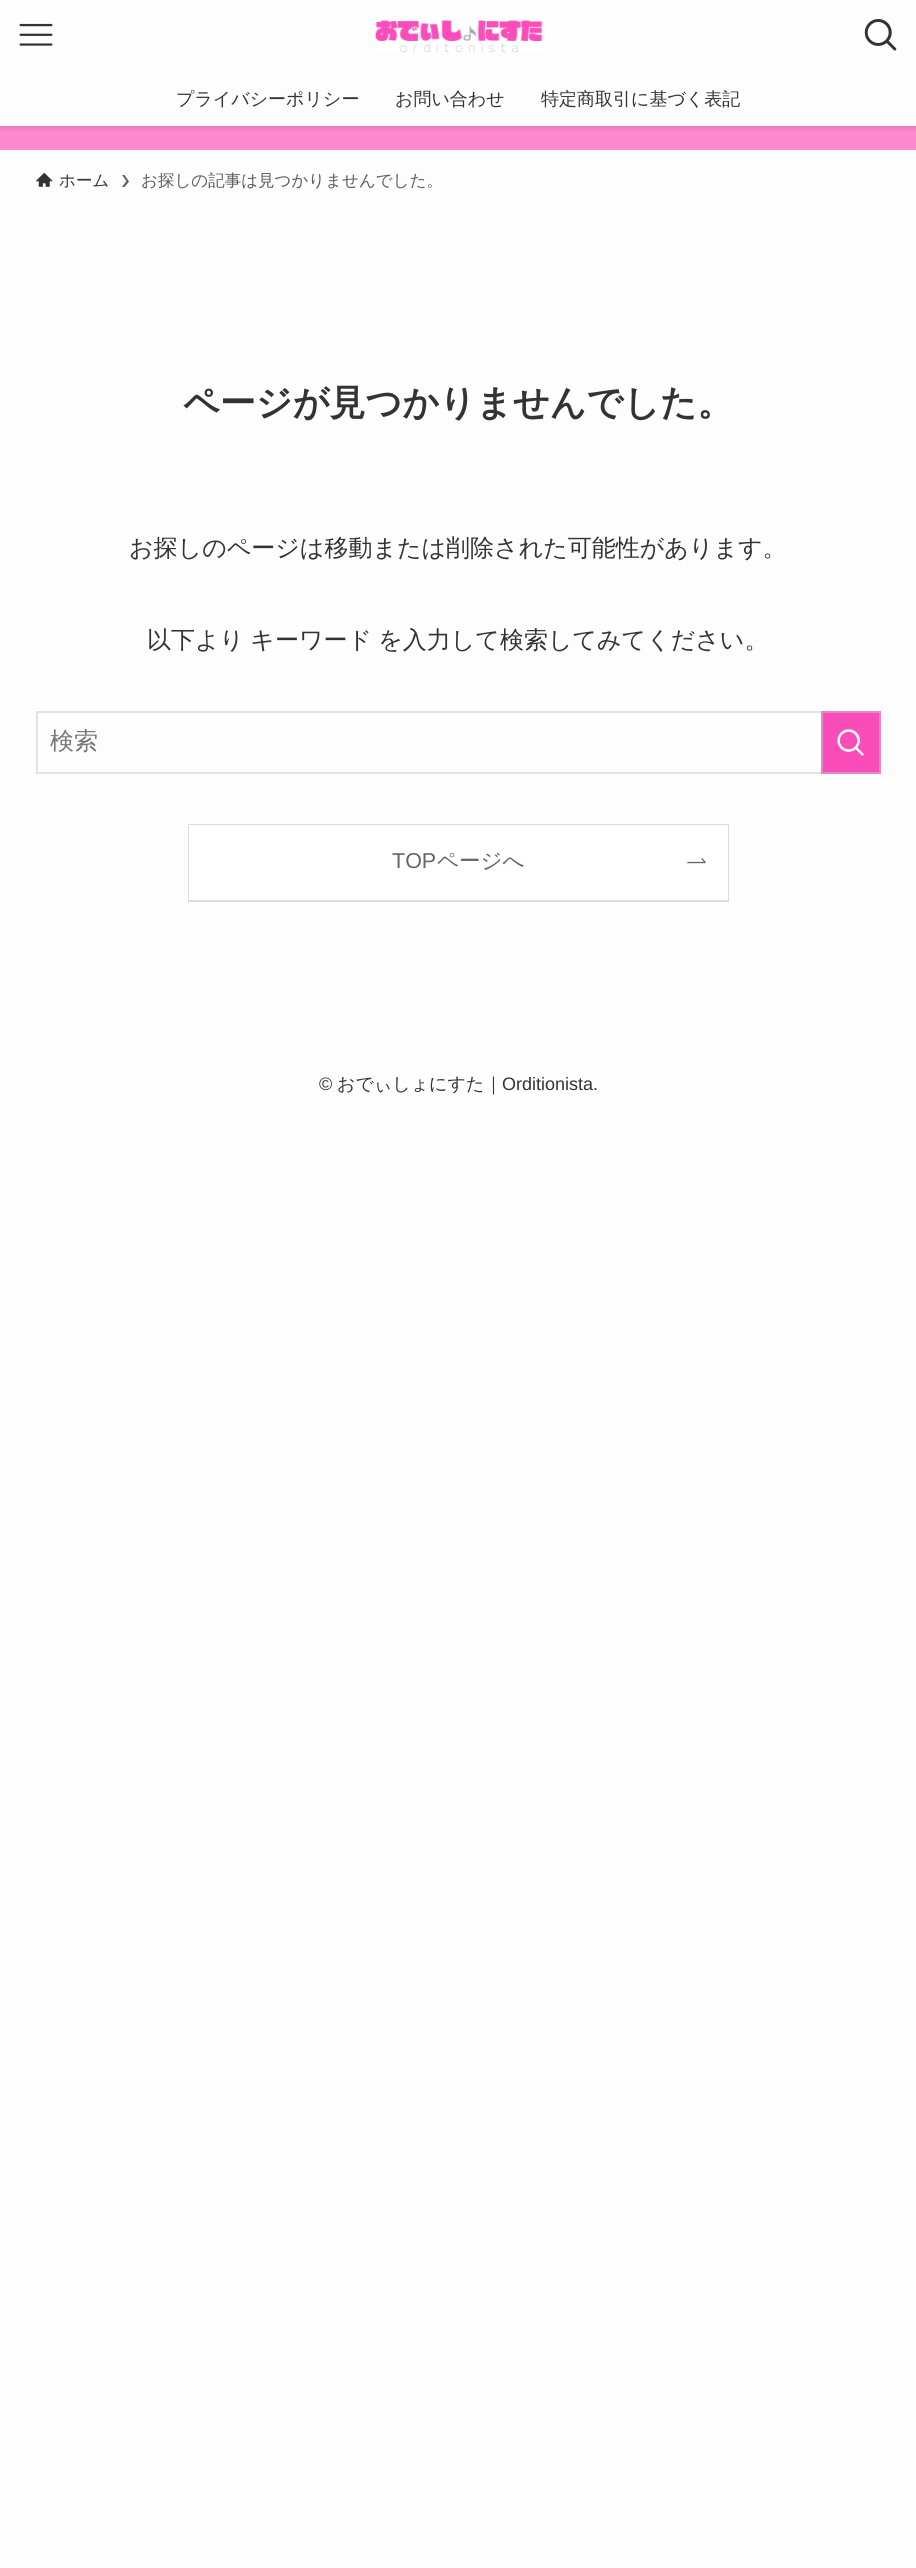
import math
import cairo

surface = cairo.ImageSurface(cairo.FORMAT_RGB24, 916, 2568)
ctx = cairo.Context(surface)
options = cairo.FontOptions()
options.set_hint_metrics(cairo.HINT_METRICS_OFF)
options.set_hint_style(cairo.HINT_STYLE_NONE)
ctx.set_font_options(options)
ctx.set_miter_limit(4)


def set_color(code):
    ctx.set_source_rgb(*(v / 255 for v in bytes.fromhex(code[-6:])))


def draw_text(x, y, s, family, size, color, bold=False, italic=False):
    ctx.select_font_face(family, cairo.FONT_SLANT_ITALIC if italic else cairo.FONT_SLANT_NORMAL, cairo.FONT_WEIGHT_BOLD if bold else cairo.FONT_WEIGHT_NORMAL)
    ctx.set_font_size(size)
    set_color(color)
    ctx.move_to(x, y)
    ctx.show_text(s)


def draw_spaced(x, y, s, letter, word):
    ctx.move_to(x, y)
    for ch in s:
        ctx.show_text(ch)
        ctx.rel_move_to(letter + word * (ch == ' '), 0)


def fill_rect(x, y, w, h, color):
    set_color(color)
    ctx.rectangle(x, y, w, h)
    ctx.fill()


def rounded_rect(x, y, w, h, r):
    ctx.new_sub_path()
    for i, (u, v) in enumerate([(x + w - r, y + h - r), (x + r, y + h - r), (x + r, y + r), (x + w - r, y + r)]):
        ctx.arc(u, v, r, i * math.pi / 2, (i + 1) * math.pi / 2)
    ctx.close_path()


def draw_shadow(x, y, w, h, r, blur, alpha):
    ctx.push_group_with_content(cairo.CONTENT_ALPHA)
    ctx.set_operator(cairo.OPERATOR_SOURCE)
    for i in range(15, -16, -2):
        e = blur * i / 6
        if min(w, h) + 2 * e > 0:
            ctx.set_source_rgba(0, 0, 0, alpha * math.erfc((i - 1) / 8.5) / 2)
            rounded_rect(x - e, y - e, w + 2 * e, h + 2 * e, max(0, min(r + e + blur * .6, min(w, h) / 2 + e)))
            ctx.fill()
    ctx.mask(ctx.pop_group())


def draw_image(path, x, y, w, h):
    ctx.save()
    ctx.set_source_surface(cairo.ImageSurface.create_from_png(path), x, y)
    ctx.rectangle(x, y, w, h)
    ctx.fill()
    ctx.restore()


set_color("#fdfdfd")
ctx.paint()
fill_rect(0, 126, 916, 24, "#fc88cd")
ctx.save()
ctx.rectangle(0, 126, 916, 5)
ctx.clip()
set_color("#000000")
draw_shadow(0, 2, 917, 126, 0, 3, 0.12)
ctx.restore()
draw_image("assets/img1.png", 19, 23, 34, 23)
draw_image("assets/img2.png", 374, 20, 169, 33)
draw_image("assets/img3.png", 864, 19, 33, 32)
draw_text(176, 105, "プライバシーポリシー", "WenQuanYi Zen Hei Medium", 18, "#333333")
draw_text(395, 105, "お問い合わせ", "WenQuanYi Zen Hei Medium", 18, "#333333")
draw_text(541, 105, "特定商取引に基づく表記", "WenQuanYi Zen Hei Medium", 18, "#333333")
draw_image("assets/img4.png", 36, 172, 17, 15)
draw_text(59, 186, "ホーム", "WenQuanYi Zen Hei Medium", 16.5, "#333333")
set_color("#5b5b5b")
ctx.new_path()
ctx.move_to(124.5, 175)
ctx.line_to(122, 175)
ctx.line_to(126.5, 181)
ctx.line_to(122, 187)
ctx.line_to(124.5, 187)
ctx.line_to(129, 181.5)
ctx.close_path()
ctx.fill()
draw_text(141, 186, "お探しの記事は見つかりませんでした。", "WenQuanYi Zen Hei Medium", 16.5, "#5b5b5b")
draw_text(183, 415, "ページが見つかりませんでした。", "WenQuanYi Zen Hei", 36, "#333333", bold=True)
draw_text(129, 556, "お探しのページは移動または削除された可能性があります。", "WenQuanYi Zen Hei Medium", 24, "#333333")
draw_spaced(147, 648, "以下より キーワード を入力して検索してみてください。", 0, -1)
ctx.rectangle(37, 712, 843, 61)
set_color("#e3e3e3")
ctx.stroke()
draw_text(50, 749, "検索", "WenQuanYi Zen Hei Medium", 24, "#757575")
set_color("#fa4dba")
ctx.rectangle(822, 712, 58, 61)
ctx.fill_preserve()
set_color("#e18ac1")
ctx.stroke()
draw_image("assets/img5.png", 837, 729, 27, 27)
ctx.rectangle(189, 825, 539, 76)
set_color("#dcdcdc")
ctx.stroke()
fill_rect(189, 825, 539, 75, "#ffffff")
draw_text(392, 868, "TOP", "Liberation Sans", 21.5, "#666666")
draw_text(437, 868, "ページへ", "WenQuanYi Zen Hei Medium", 21.5, "#666666")
draw_image("assets/img6.png", 687, 858, 19, 6)
draw_text(319, 1090, "©", "Liberation Sans", 18, "#333333")
draw_text(337, 1090, "おでぃしょにすた｜", "WenQuanYi Zen Hei Medium", 18, "#333333")
draw_text(502, 1090, "Orditionista.", "Liberation Sans", 18, "#333333")
surface.write_to_png("output.png")
